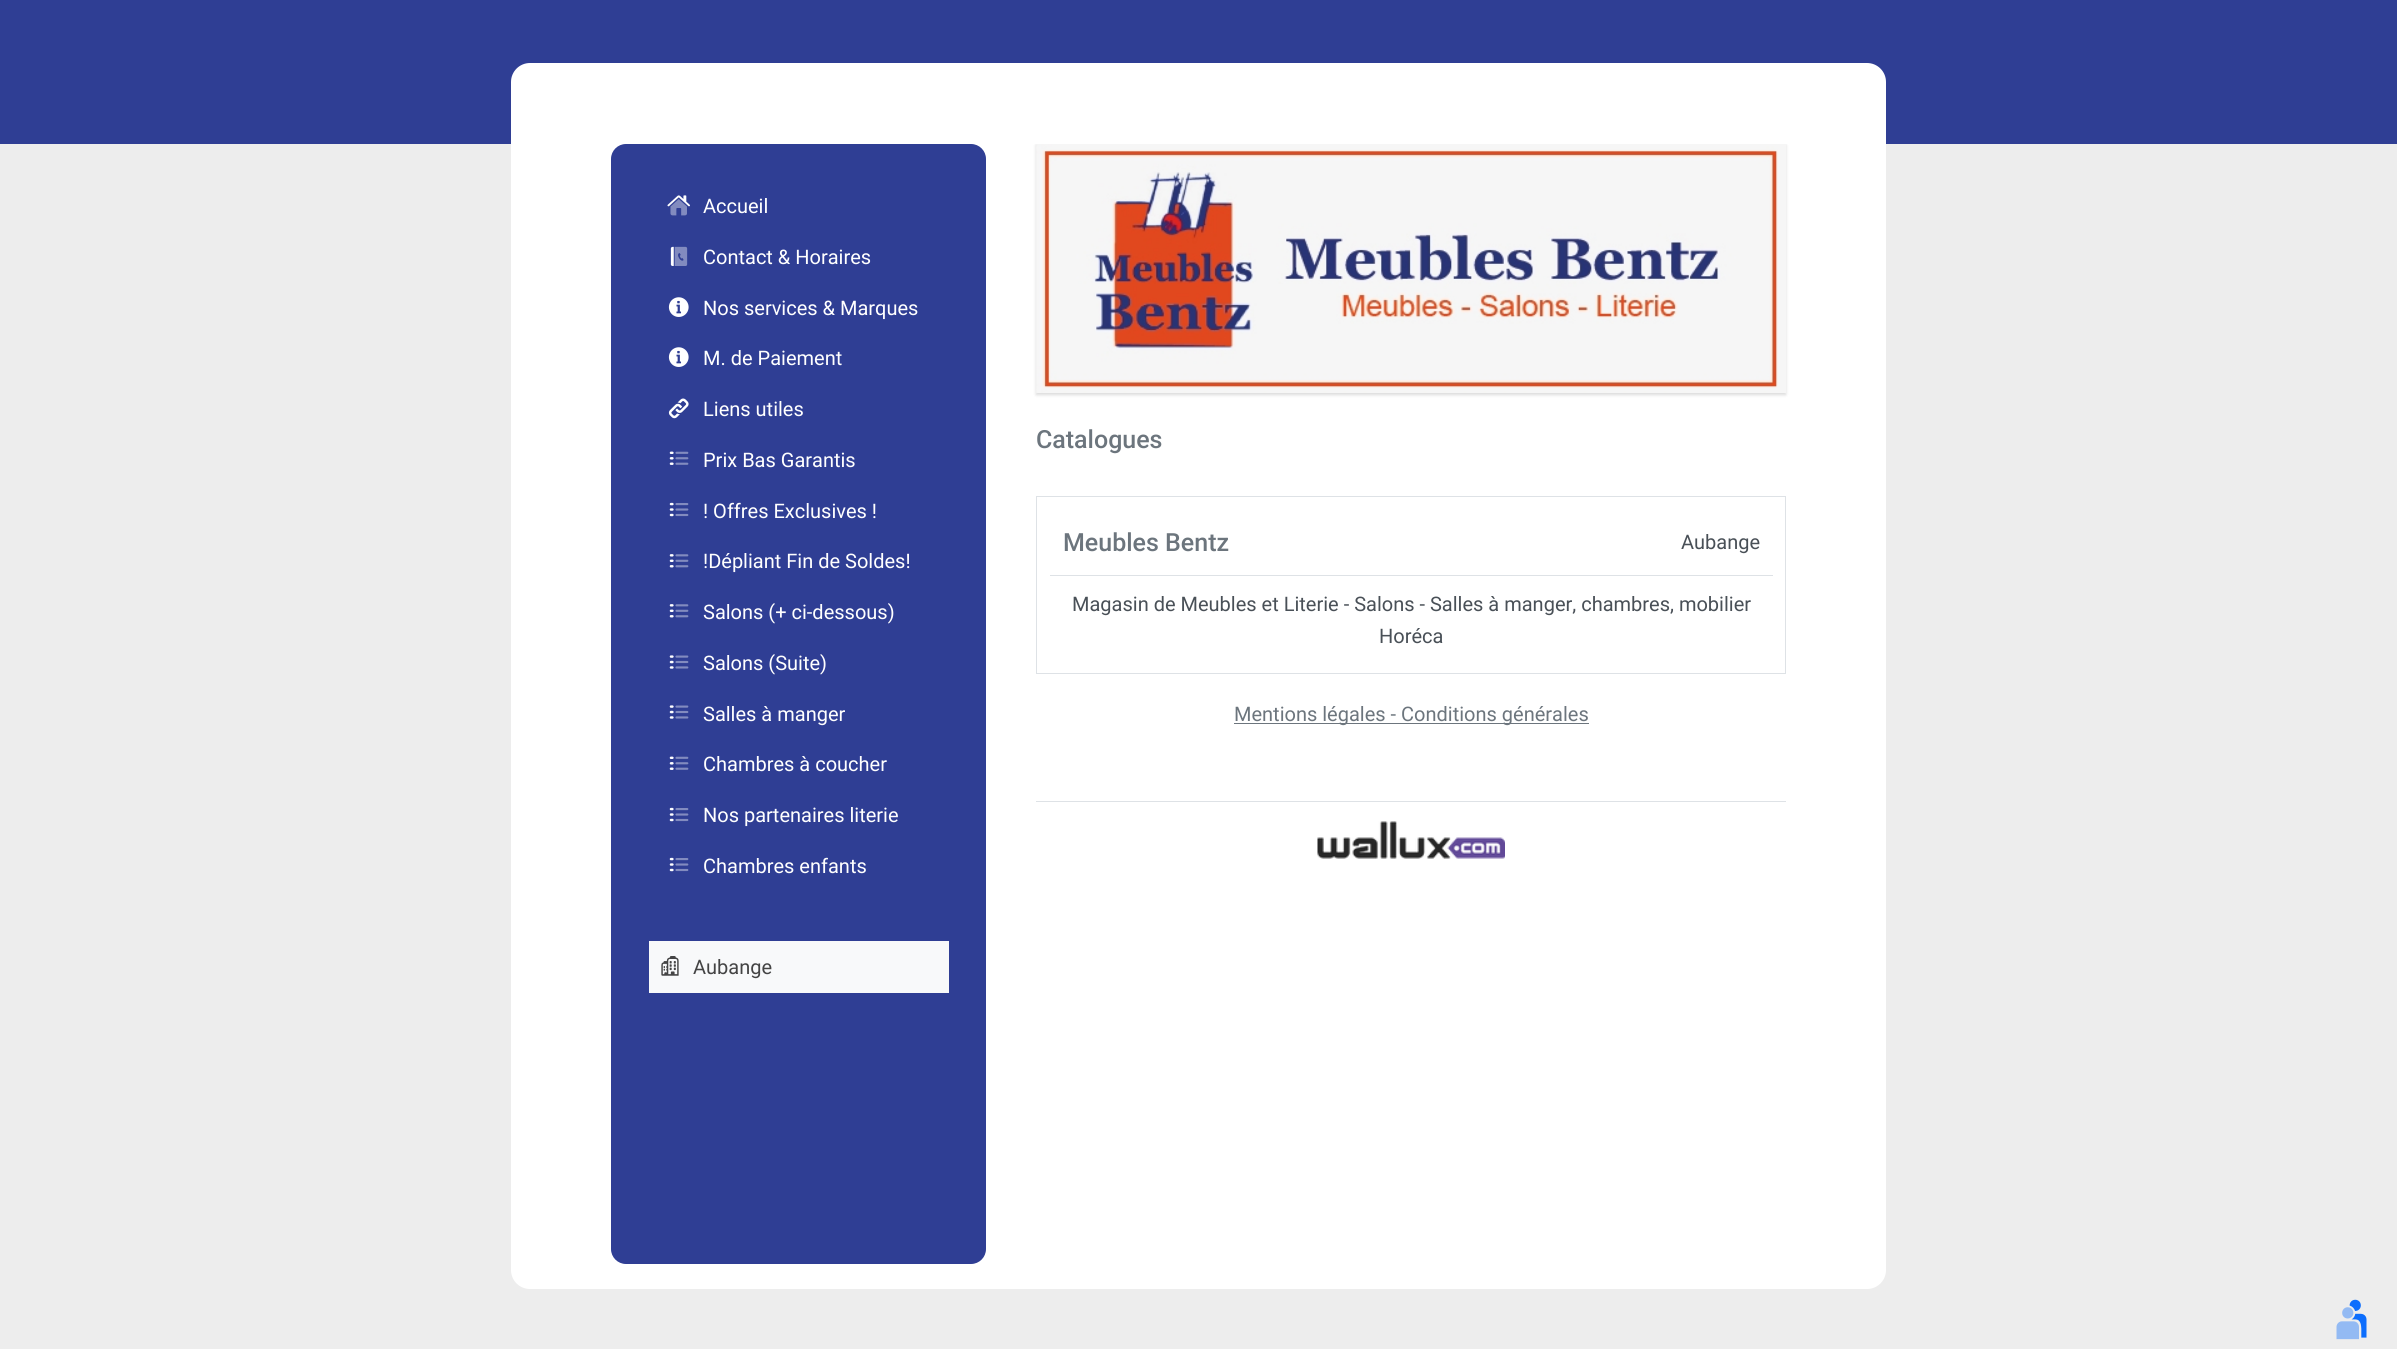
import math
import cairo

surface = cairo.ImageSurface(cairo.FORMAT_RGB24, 2397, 1349)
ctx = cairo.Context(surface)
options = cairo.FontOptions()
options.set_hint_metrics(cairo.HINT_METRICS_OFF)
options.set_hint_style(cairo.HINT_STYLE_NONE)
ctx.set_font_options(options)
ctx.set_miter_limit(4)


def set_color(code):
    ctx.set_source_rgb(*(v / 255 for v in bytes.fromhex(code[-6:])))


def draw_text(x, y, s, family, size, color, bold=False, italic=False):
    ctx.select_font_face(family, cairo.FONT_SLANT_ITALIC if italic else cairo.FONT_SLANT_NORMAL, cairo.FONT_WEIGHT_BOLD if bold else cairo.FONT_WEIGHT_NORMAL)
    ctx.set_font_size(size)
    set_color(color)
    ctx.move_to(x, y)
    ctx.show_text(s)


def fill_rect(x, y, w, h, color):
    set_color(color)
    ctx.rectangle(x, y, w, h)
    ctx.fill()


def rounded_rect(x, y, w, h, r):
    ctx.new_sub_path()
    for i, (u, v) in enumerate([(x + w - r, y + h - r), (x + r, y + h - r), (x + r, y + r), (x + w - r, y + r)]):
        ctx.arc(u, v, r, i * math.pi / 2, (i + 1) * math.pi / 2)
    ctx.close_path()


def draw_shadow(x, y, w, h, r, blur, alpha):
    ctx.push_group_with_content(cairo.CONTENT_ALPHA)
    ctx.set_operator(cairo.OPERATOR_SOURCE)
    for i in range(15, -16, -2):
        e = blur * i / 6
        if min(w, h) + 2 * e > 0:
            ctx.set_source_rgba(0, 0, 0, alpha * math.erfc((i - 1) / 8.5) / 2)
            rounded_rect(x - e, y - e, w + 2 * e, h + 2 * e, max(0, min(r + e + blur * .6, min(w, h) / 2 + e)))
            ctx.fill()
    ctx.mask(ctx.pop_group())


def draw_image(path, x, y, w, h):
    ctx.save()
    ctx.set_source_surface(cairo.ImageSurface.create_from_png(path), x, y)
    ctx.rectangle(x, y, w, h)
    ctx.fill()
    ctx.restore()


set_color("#ededed")
ctx.paint()
set_color("#ffffff")
ctx.new_path()
ctx.move_to(511, 144)
ctx.line_to(1886, 144)
ctx.line_to(1886, 1270)
ctx.curve_to(1886, 1280.5, 1877.5, 1289, 1867, 1289)
ctx.line_to(530, 1289)
ctx.curve_to(519.5, 1289, 511, 1280.5, 511, 1270)
ctx.close_path()
ctx.fill()
set_color("#000000")
draw_shadow(1036, 145, 750, 250, 0, 1.5, 0.14)
fill_rect(0, 0, 2397, 144, "#2f3e94")
set_color("#ffffff")
ctx.new_path()
ctx.move_to(530, 63)
ctx.line_to(1867, 63)
ctx.curve_to(1877.5, 63, 1886, 71.5, 1886, 82)
ctx.line_to(1886, 144)
ctx.line_to(511, 144)
ctx.line_to(511, 82)
ctx.curve_to(511, 71.5, 519.5, 63, 530, 63)
ctx.close_path()
ctx.fill()
set_color("#2f3e94")
rounded_rect(611, 144, 375, 1120, 15)
ctx.fill()
draw_image("assets/img1.png", 667, 195, 23, 12)
draw_image("assets/img2.png", 670, 199, 17, 17)
draw_text(703, 213, "Accueil", "Roboto", 20, "#ffffff")
draw_image("assets/img3.png", 670, 246, 4, 20)
draw_image("assets/img4.png", 674, 246, 14, 20)
draw_text(703, 264, "Contact & Horaires", "Roboto", 20, "#ffffff")
draw_image("assets/img5.png", 668, 297, 21, 20)
draw_text(703, 315, "Nos services & Marques", "Roboto", 20, "#ffffff")
draw_image("assets/img5.png", 668, 347, 21, 20)
draw_text(703, 365, "M. de Paiement", "Roboto", 20, "#ffffff")
draw_image("assets/img6.png", 668, 398, 21, 21)
draw_text(703, 416, "Liens utiles", "Roboto", 20, "#ffffff")
draw_image("assets/img7.png", 669, 451, 5, 14)
draw_image("assets/img8.png", 675, 451, 14, 14)
draw_text(703, 467, "Prix Bas Garantis", "Roboto", 20, "#ffffff")
draw_image("assets/img9.png", 669, 502, 5, 15)
draw_image("assets/img10.png", 675, 503, 14, 14)
draw_text(703, 518, "! Offres Exclusives !", "Roboto", 20, "#ffffff")
draw_image("assets/img11.png", 669, 554, 5, 14)
draw_image("assets/img12.png", 675, 554, 14, 14)
draw_text(703, 568, "!Dépliant Fin de Soldes!", "Roboto", 20, "#ffffff")
draw_image("assets/img11.png", 669, 604, 5, 14)
draw_image("assets/img12.png", 675, 604, 14, 14)
draw_text(703, 619, "Salons (+ ci-dessous)", "Roboto", 20, "#ffffff")
draw_image("assets/img13.png", 669, 655, 5, 14)
draw_image("assets/img14.png", 675, 655, 14, 14)
draw_text(703, 670, "Salons (Suite)", "Roboto", 20, "#ffffff")
draw_image("assets/img13.png", 669, 705, 5, 14)
draw_image("assets/img14.png", 675, 705, 14, 14)
draw_text(703, 721, "Salles à manger", "Roboto", 20, "#ffffff")
draw_image("assets/img7.png", 669, 756, 5, 14)
draw_image("assets/img8.png", 675, 756, 14, 14)
draw_text(703, 771, "Chambres à coucher", "Roboto", 20, "#ffffff")
draw_image("assets/img9.png", 669, 807, 5, 15)
draw_image("assets/img10.png", 675, 808, 14, 14)
draw_text(703, 822, "Nos partenaires literie", "Roboto", 20, "#ffffff")
draw_image("assets/img9.png", 669, 857, 5, 15)
draw_image("assets/img10.png", 675, 858, 14, 14)
draw_text(703, 873, "Chambres enfants", "Roboto", 20, "#ffffff")
fill_rect(649, 941, 300, 52, "#f8f9fa")
draw_image("assets/img15.png", 661, 956, 18, 20)
draw_text(693, 974, "Aubange", "Roboto", 20, "#444444")
draw_image("assets/img16.png", 1036, 144, 750, 249)
draw_text(1036, 448, "Catalogues", "Roboto Medium", 25, "#6c757d")
ctx.rectangle(1036.5, 496.5, 749, 177)
set_color("#dee2e6")
ctx.set_line_width(1)
ctx.stroke()
draw_text(1063, 551, "Meubles Bentz", "Roboto Medium", 25, "#6c757d")
draw_text(1681, 549, "Aubange", "Roboto", 20, "#495057")
fill_rect(1050, 575, 723, 1, "#dee2e6")
draw_text(1072, 611, "Magasin de Meubles et Literie - Salons - Salles à manger, chambres, mobilier", "Roboto", 20, "#495057")
draw_text(1379, 643, "Horéca", "Roboto", 20, "#495057")
fill_rect(1234, 723, 355, 1, "#6c757d")
draw_text(1234, 721, "Mentions légales - Conditions générales", "Roboto", 20, "#6c757d")
fill_rect(1036, 801, 750, 1, "#dee2e6")
draw_image("assets/img17.png", 1317, 821, 188, 38)
draw_image("assets/img18.png", 2349, 1299, 18, 39)
draw_image("assets/img19.png", 2336, 1307, 23, 33)
surface.write_to_png("output.png")
